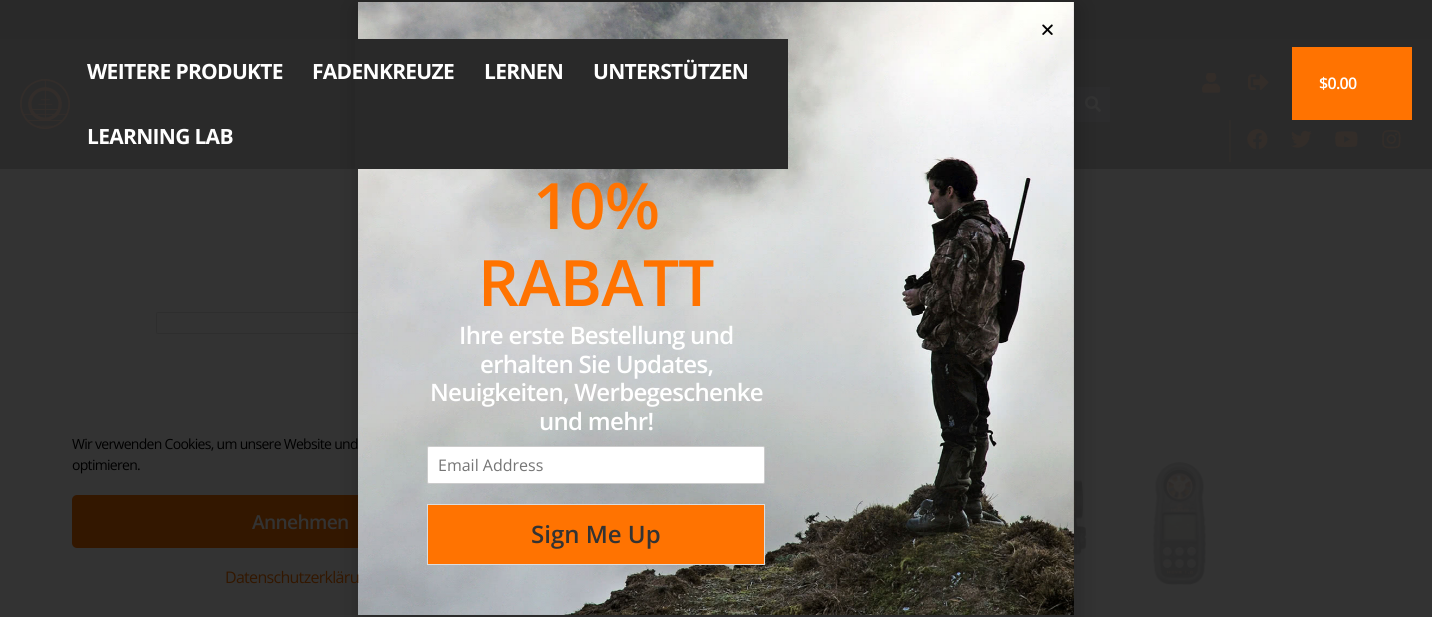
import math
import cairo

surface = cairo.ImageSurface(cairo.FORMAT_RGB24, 1432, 617)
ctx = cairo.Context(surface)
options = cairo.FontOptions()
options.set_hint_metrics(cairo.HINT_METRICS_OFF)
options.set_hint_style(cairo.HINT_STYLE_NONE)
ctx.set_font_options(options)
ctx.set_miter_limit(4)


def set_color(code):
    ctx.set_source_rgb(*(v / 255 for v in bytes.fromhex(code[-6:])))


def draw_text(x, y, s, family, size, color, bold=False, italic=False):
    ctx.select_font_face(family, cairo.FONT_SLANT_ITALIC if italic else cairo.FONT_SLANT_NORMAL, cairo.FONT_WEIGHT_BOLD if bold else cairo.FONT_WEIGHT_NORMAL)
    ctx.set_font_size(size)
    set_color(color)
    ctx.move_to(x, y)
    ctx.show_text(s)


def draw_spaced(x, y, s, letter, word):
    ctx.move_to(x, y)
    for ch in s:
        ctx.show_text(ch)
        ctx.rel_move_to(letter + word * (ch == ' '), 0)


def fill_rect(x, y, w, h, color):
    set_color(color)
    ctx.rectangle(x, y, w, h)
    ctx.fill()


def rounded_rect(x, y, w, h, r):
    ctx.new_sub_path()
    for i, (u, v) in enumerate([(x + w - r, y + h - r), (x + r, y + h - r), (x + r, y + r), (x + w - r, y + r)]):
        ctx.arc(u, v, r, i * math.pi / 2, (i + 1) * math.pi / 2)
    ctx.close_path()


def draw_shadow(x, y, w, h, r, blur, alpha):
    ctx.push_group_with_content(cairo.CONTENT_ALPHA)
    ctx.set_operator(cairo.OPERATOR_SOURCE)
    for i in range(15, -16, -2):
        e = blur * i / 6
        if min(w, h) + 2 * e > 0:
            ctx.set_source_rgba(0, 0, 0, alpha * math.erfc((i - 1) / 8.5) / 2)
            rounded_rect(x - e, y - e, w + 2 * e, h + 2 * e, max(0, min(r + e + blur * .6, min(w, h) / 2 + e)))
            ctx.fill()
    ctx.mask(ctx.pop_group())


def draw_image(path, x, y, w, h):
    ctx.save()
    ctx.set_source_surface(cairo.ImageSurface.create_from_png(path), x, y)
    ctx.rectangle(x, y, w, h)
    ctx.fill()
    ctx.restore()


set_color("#333333")
ctx.paint()
fill_rect(0, 0, 1432, 39, "#292929")
fill_rect(0, 39, 1432, 130, "#2a2a2a")
draw_image("assets/img1.png", 20, 79, 50, 50)
fill_rect(1075, 87, 35, 35, "#2c2c2d")
draw_image("assets/img8.png", 1085, 96, 16, 16)
rounded_rect(156.5, 312.5, 245, 21, 1.5)
set_color("#2e2e2e")
ctx.set_line_width(1)
ctx.stroke()
draw_image("assets/img11.png", 1073, 462, 134, 124)
set_color("#331700")
rounded_rect(72, 495, 456, 53, 5)
ctx.fill()
set_color("#000000")
draw_shadow(357, 7, 722, 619, 0, 11.5, 0.2)
draw_image("assets/img9.png", 358, 2, 716, 613)
fill_rect(355, 39, 433, 130, "#292929")
ctx.select_font_face("Open Sans", cairo.FONT_SLANT_NORMAL, cairo.FONT_WEIGHT_BOLD)
ctx.set_font_size(21)
set_color("#ffffff")
draw_spaced(87, 79, "WEITERE PRODUKTE", -0.7, 0)
draw_spaced(312, 79, "FADENKREUZE", -0.7, 0)
draw_spaced(484, 79, "LERNEN", -0.7, 0)
draw_spaced(593, 79, "UNTERSTÜTZEN", -0.7, 0)
draw_spaced(87, 144, "LEARNING LAB", -0.7, 0)
draw_image("assets/img2.png", 1202, 73, 19, 20)
draw_image("assets/img3.png", 1248, 74, 21, 16)
fill_rect(1292, 47, 120, 73, "#ff7301")
ctx.select_font_face("Open Sans SemiBold")
ctx.set_font_size(16)
set_color("#ffffff")
draw_spaced(1319, 89, "$0.00", -0.7, 0)
fill_rect(1229, 120, 2, 42, "#2e2c2a")
draw_image("assets/img4.png", 1247, 129, 21, 21)
draw_image("assets/img5.png", 1291, 130, 21, 18)
draw_image("assets/img6.png", 1335, 131, 23, 16)
draw_image("assets/img7.png", 1382, 130, 19, 19)
draw_image("assets/img10.png", 1042, 24, 11, 11)
ctx.set_font_size(64)
set_color("#ff7301")
draw_spaced(533, 229, "10%", -0.7, 0)
draw_spaced(478, 306, "RABATT", -0.7, 0)
ctx.set_font_size(24)
set_color("#ffffff")
draw_spaced(459, 344, "Ihre erste Bestellung und", -0.7, 0)
draw_spaced(480, 373, "erhalten Sie Updates,", -0.7, 0)
draw_spaced(430, 401, "Neuigkeiten, Werbegeschenke", -0.7, 0)
draw_spaced(539, 430, "und mehr!", -0.7, 0)
rounded_rect(427.5, 446.5, 337, 37, 1.5)
ctx.fill_preserve()
set_color("#cccccc")
ctx.stroke()
draw_text(438, 471, "Email Address", "Open Sans", 16, "#757575")
set_color("#ff7301")
ctx.rectangle(427.5, 504.5, 337, 60)
ctx.fill_preserve()
set_color("#dddddd")
ctx.stroke()
draw_text(531, 543, "Sign Me Up", "Open Sans SemiBold", 24, "#333333")
ctx.select_font_face("Open Sans")
ctx.set_font_size(14)
set_color("#000000")
draw_spaced(72, 449, "Wir verwenden Cookies, um unsere Website und", -0.7, 0)
draw_spaced(72, 470, "optimieren.", -0.7, 0)
ctx.select_font_face("Open Sans SemiBold")
ctx.set_font_size(19.25)
set_color("#333333")
draw_spaced(252, 529, "Annehmen", -0.7, 0)
ctx.select_font_face("Open Sans")
ctx.set_font_size(16)
set_color("#331700")
draw_spaced(225, 583, "Datenschutzerkläru", -0.7, 0)
surface.write_to_png("output.png")
